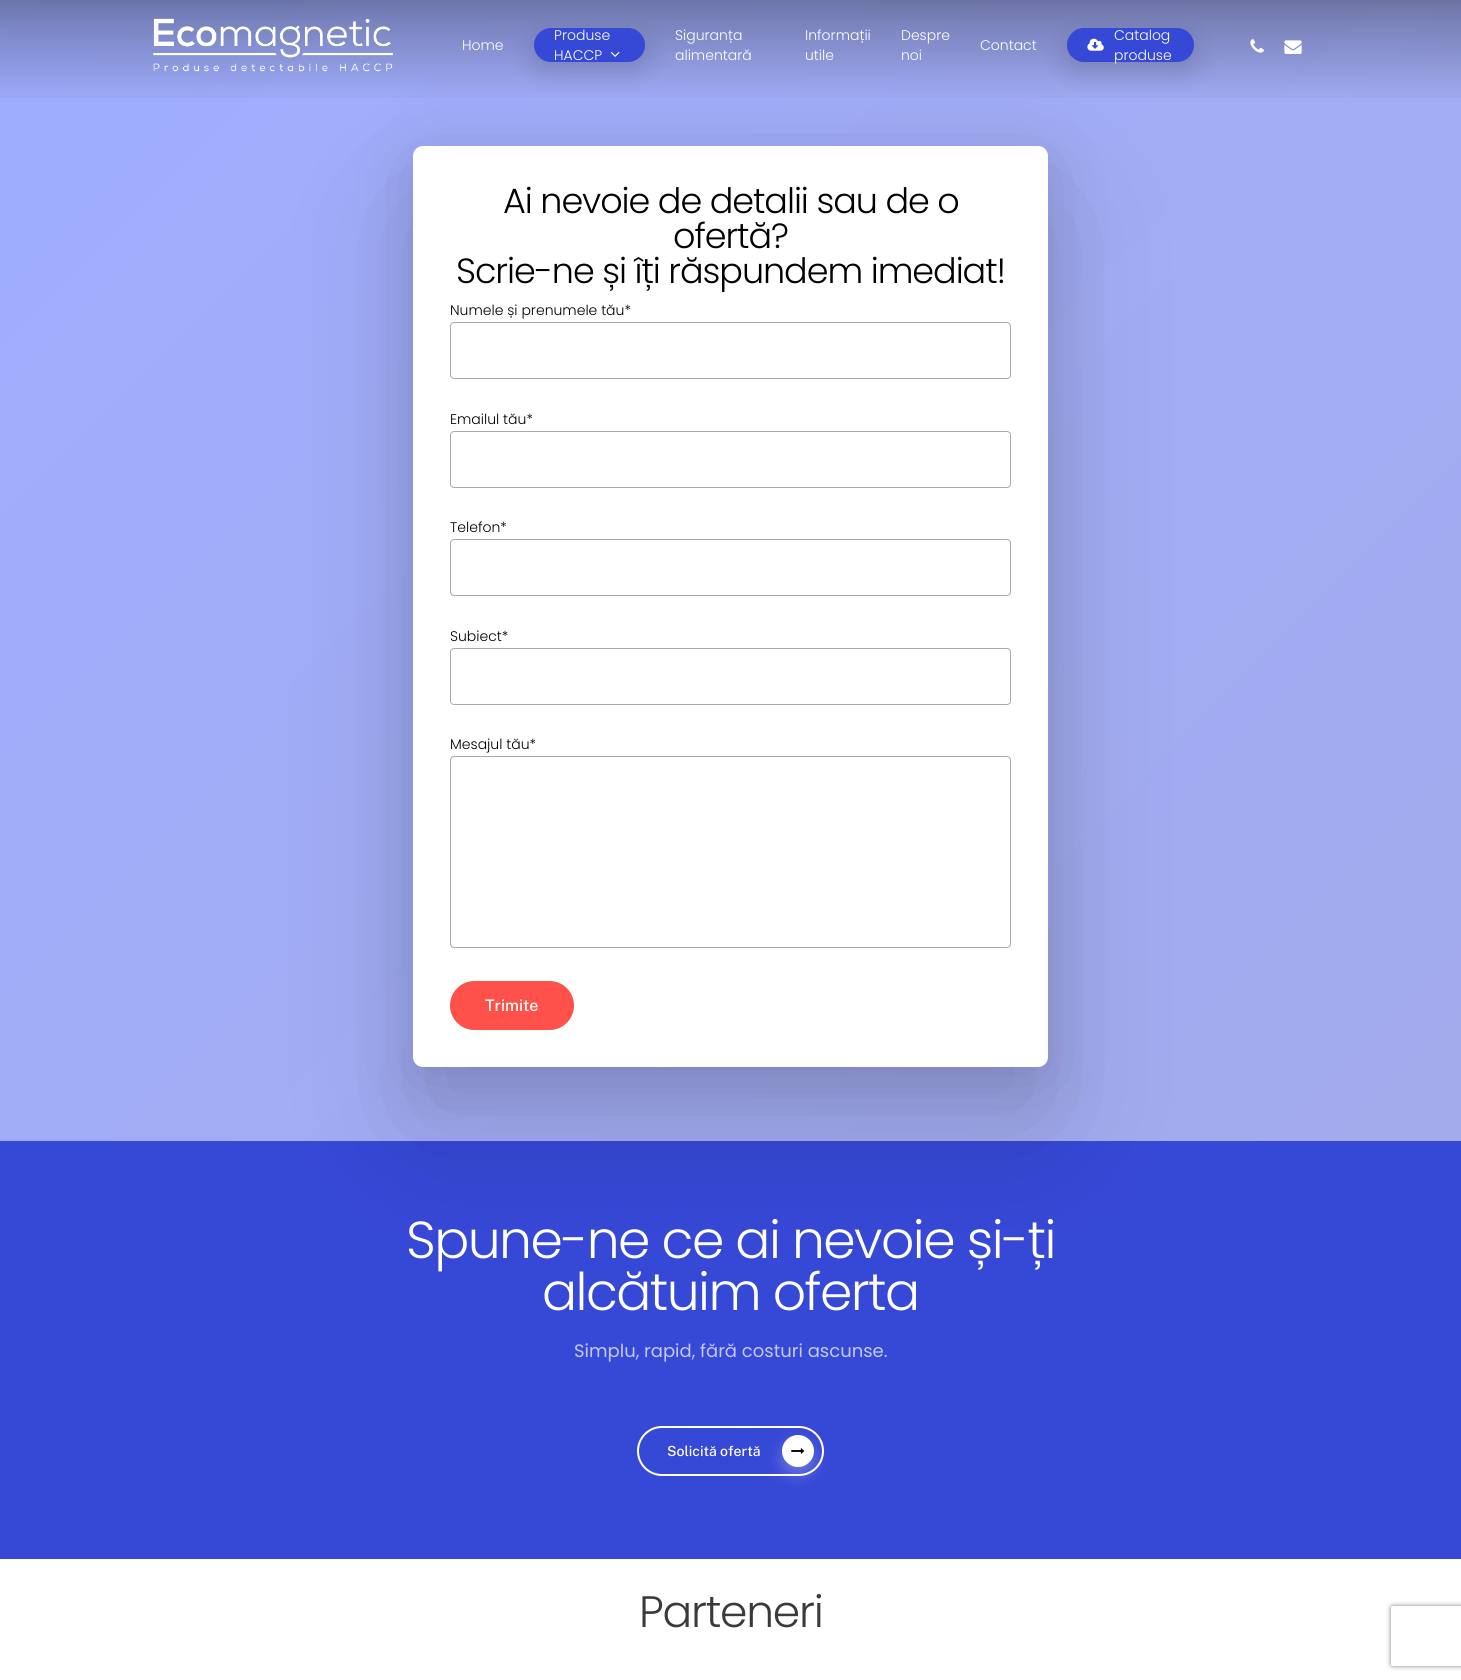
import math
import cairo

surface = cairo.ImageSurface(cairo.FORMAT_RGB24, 1461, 1680)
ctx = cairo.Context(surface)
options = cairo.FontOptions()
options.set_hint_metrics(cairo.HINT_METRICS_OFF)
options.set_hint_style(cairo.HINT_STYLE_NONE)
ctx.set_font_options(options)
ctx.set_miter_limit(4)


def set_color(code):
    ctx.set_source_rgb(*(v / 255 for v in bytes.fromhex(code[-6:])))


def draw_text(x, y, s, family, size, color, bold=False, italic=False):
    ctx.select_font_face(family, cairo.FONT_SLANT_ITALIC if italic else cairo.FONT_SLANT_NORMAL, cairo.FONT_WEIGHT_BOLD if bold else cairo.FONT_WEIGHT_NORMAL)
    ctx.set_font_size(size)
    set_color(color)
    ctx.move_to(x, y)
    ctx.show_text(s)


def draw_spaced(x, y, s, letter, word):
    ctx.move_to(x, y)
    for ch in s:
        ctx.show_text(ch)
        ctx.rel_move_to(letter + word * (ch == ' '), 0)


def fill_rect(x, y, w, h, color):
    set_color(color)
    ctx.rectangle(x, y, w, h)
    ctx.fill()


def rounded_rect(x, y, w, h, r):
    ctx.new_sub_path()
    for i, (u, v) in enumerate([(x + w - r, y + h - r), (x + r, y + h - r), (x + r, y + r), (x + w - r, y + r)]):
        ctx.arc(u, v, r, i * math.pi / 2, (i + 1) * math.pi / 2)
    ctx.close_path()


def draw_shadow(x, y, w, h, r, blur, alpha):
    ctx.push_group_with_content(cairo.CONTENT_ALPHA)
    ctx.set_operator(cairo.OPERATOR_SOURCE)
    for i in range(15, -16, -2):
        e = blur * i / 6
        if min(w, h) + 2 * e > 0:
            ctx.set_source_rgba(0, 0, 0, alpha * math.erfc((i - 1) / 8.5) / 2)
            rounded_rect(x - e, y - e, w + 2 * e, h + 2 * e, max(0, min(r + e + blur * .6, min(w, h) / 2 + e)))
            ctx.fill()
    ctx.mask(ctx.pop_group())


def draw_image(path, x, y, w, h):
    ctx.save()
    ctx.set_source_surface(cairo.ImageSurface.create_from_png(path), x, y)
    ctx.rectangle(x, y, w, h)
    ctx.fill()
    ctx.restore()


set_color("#ffffff")
ctx.paint()
fill_rect(0, 1141, 1461, 418, "#3648d6")
gradient = cairo.LinearGradient(80, -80, 1381, 1222)
gradient.add_color_stop_rgba(0, 0.204, 0.322, 1, 0.47)
gradient.add_color_stop_rgba(1, 0.212, 0.282, 0.839, 0.46)
ctx.set_source(gradient)
ctx.rectangle(0, 0, 1461, 1142)
ctx.fill()
set_color("#000000")
draw_shadow(413, 161, 635, 921, 10, 32.5, 0.14)
draw_shadow(413, 206, 635, 921, 10, 67.5, 0.14)
gradient = cairo.LinearGradient(731, 108, 731, 0)
gradient.add_color_stop_rgba(0, 1, 1, 1, 0)
gradient.add_color_stop_rgba(0.01, 0, 0, 0, 0)
gradient.add_color_stop_rgba(0.16, 0, 0, 0, 0.04)
gradient.add_color_stop_rgba(0.75, 0, 0, 0, 0.23)
gradient.add_color_stop_rgba(1, 0, 0, 0, 0.33)
ctx.set_source(gradient)
ctx.rectangle(0, 0, 1461, 98)
ctx.fill()
draw_image("assets/img1.png", 153, 18, 240, 54)
draw_text(462, 50, "Home", "Poppins Light", 14, "#ffffff")
set_color("#000000")
draw_shadow(534, 38, 111, 34, 17, 12.5, 0.13)
set_color("#3648d6")
rounded_rect(534, 28, 111, 34, 17)
ctx.fill()
draw_text(554, 40, "Produse", "Poppins Light", 14, "#ffffff")
draw_text(554, 60, "HACCP", "Poppins Light", 14, "#ffffff")
draw_image("assets/img2.png", 610, 52, 10, 5)
draw_text(675, 40, "Siguranța", "Poppins Light", 14, "#ffffff")
draw_text(675, 60, "alimentară", "Poppins Light", 14, "#ffffff")
draw_text(805, 40, "Informații", "Poppins Light", 14, "#ffffff")
draw_text(805, 60, "utile", "Poppins Light", 14, "#ffffff")
draw_text(901, 40, "Despre", "Poppins Light", 14, "#ffffff")
draw_text(901, 60, "noi", "Poppins Light", 14, "#ffffff")
draw_text(980, 50, "Contact", "Poppins Light", 14, "#ffffff")
set_color("#000000")
draw_shadow(1067, 38, 127, 34, 17, 12.5, 0.13)
set_color("#3648d6")
rounded_rect(1067, 28, 127, 34, 17)
ctx.fill()
draw_image("assets/img3.png", 1087, 38, 17, 13)
draw_text(1114, 40, "Catalog", "Poppins Light", 14, "#ffffff")
draw_text(1114, 60, "produse", "Poppins Light", 14, "#ffffff")
draw_image("assets/img4.png", 1250, 39, 14, 14)
draw_image("assets/img5.png", 1284, 40, 18, 14)
rounded_rect(413, 146, 635, 921, 10)
ctx.fill()
ctx.set_font_size(35)
set_color("#000000")
draw_spaced(503, 213, "Ai nevoie de detalii sau de o", -1.05, 0)
draw_spaced(673, 248, "ofertă?", -1.05, 0)
draw_spaced(456, 283, "Scrie-ne și îți răspundem imediat!", -1.05, 0)
draw_text(450, 315, "Numele și prenumele tău*", "Poppins Light", 14, "#000000")
rounded_rect(450.5, 322.5, 560, 56, 3.5)
set_color("#aaaaaa")
ctx.set_line_width(1)
ctx.stroke()
draw_text(450, 424, "Emailul tău*", "Poppins Light", 14, "#000000")
rounded_rect(450.5, 431.5, 560, 56, 3.5)
set_color("#aaaaaa")
ctx.stroke()
draw_text(450, 532, "Telefon*", "Poppins Light", 14, "#000000")
rounded_rect(450.5, 539.5, 560, 56, 3.5)
set_color("#aaaaaa")
ctx.stroke()
draw_text(450, 641, "Subiect*", "Poppins Light", 14, "#000000")
rounded_rect(450.5, 648.5, 560, 56, 3.5)
set_color("#aaaaaa")
ctx.stroke()
draw_text(450, 749, "Mesajul tău*", "Poppins Light", 14, "#000000")
rounded_rect(450.5, 756.5, 560, 191, 3.5)
set_color("#aaaaaa")
ctx.stroke()
set_color("#ff5149")
rounded_rect(450, 981, 124, 49, 24.5)
ctx.fill()
draw_text(485, 1011, "Trimite", "Public Sans Medium", 16, "#ffffff")
ctx.select_font_face("Poppins Light")
ctx.set_font_size(52)
draw_spaced(406, 1258, "Spune-ne ce ai nevoie și-ți", -1.55, 0)
draw_spaced(542, 1310, "alcătuim oferta", -1.55, 0)
draw_text(574, 1357, "Simplu, rapid, fără costuri ascunse.", "Poppins", 18, "#c3c8f3")
rounded_rect(638, 1427, 185, 48, 24)
set_color("#ffffff")
ctx.set_line_width(2)
ctx.stroke()
draw_text(667, 1456, "Solicită ofertă", "Public Sans Medium", 14, "#ffffff")
set_color("#ffffff")
draw_shadow(782, 1443, 32, 32, 16, 7.5, 0.24)
set_color("#ffffff")
ctx.arc(798, 1451, 16, 0, 2 * math.pi)
ctx.fill()
draw_image("assets/img6.png", 791, 1448, 14, 6)
ctx.select_font_face("Poppins Light")
ctx.set_font_size(44)
set_color("#3a3a3a")
draw_spaced(639, 1627, "Parteneri", -1.25, 0)
ctx.save()
ctx.set_fill_rule(cairo.FILL_RULE_EVEN_ODD)
ctx.new_path()
ctx.move_to(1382, 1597)
ctx.line_to(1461, 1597)
ctx.line_to(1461, 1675)
ctx.line_to(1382, 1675)
ctx.close_path()
ctx.move_to(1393, 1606)
ctx.line_to(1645, 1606)
ctx.curve_to(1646, 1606, 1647, 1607, 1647, 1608)
ctx.line_to(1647, 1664)
ctx.curve_to(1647, 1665, 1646, 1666, 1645, 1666)
ctx.line_to(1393, 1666)
ctx.curve_to(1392, 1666, 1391, 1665, 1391, 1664)
ctx.line_to(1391, 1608)
ctx.curve_to(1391, 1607, 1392, 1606, 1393, 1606)
ctx.close_path()
ctx.clip()
set_color("#808080")
draw_shadow(1391, 1606, 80, 60, 2, 2.5, 1)
ctx.restore()
surface.write_to_png("output.png")
